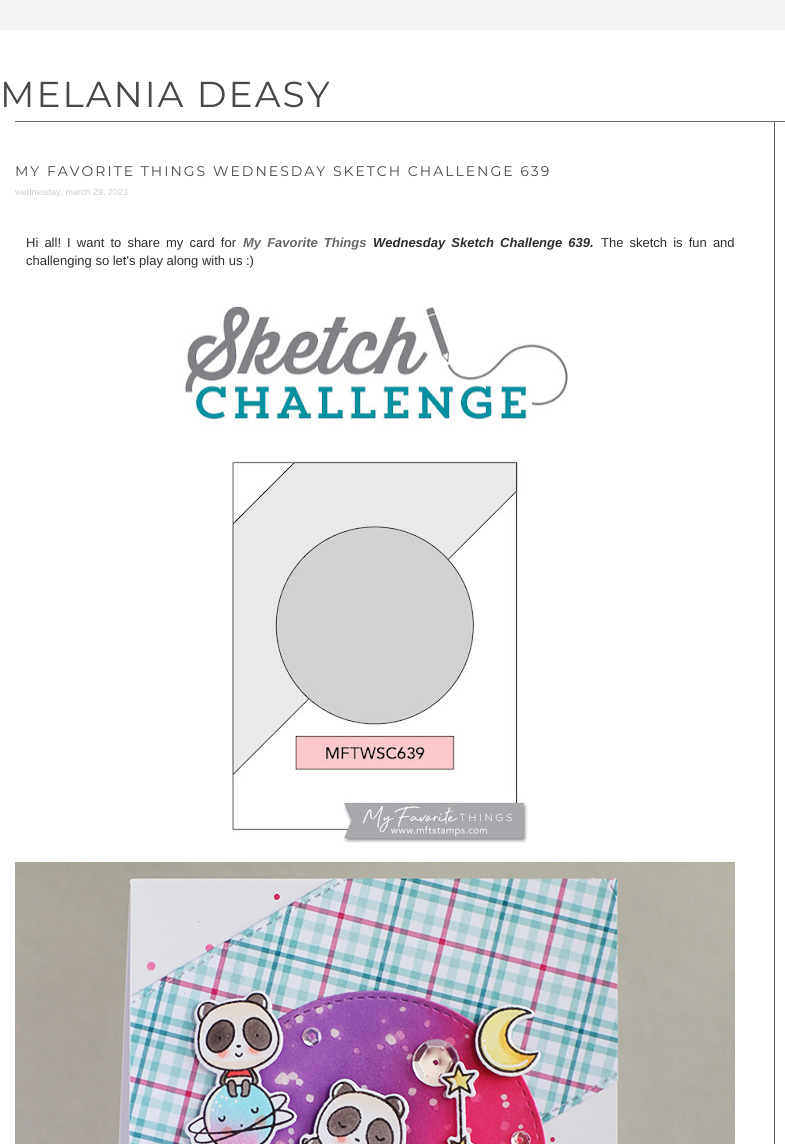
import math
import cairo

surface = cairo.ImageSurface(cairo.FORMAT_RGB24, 785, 1144)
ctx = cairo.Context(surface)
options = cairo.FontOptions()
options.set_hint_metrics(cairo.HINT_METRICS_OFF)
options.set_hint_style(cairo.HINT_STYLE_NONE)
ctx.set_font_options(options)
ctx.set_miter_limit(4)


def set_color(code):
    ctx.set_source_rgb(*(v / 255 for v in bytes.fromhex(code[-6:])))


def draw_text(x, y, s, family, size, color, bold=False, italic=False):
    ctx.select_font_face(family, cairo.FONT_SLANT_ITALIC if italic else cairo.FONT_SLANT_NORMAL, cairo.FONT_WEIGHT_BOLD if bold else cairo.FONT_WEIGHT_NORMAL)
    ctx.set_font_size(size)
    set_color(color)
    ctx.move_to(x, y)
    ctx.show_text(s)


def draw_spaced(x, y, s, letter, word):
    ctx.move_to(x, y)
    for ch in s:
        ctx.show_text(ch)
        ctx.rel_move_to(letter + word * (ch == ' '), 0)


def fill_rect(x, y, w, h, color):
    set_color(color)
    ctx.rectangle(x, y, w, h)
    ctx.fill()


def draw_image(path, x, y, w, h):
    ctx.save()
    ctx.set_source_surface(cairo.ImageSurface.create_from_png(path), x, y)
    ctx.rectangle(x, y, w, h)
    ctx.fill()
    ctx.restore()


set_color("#ffffff")
ctx.paint()
fill_rect(0, 0, 785, 30, "#f3f3f3")
ctx.select_font_face("Montserrat Thin")
ctx.set_font_size(36)
set_color("#484848")
draw_spaced(0, 107, "MELANIA DEASY", 2, 0)
fill_rect(15, 121, 770, 1, "#666666")
ctx.set_font_size(14)
set_color("#484848")
draw_spaced(15, 176, "MY FAVORITE THINGS WEDNESDAY SKETCH CHALLENGE 639", 2, 0)
draw_text(15, 195, "wednesday, march 29, 2023", "Liberation Sans", 9, "#cccccc")
ctx.set_font_size(13)
set_color("#2e2d2d")
draw_spaced(26, 247, "Hi all! I want to share my card for", 0, 2.5)
ctx.select_font_face("Liberation Sans", cairo.FONT_SLANT_ITALIC, cairo.FONT_WEIGHT_BOLD)
set_color("#666666")
draw_spaced(243, 247, "My Favorite Things", 0, 2.5)
set_color("#2e2d2d")
draw_spaced(373, 247, "Wednesday Sketch Challenge 639.", 0, 2.5)
ctx.select_font_face("Liberation Sans")
draw_spaced(601, 247, "The sketch is fun and", 0, 2.5)
draw_text(26, 265, "challenging so let's play along with us :)", "Liberation Sans", 13, "#2e2d2d")
draw_image("assets/img1.png", 183, 306, 385, 120)
draw_image("assets/img2.png", 232, 459, 296, 384)
draw_image("assets/img3.png", 15, 862, 720, 282)
fill_rect(774, 122, 1, 1022, "#666666")
surface.write_to_png("output.png")
